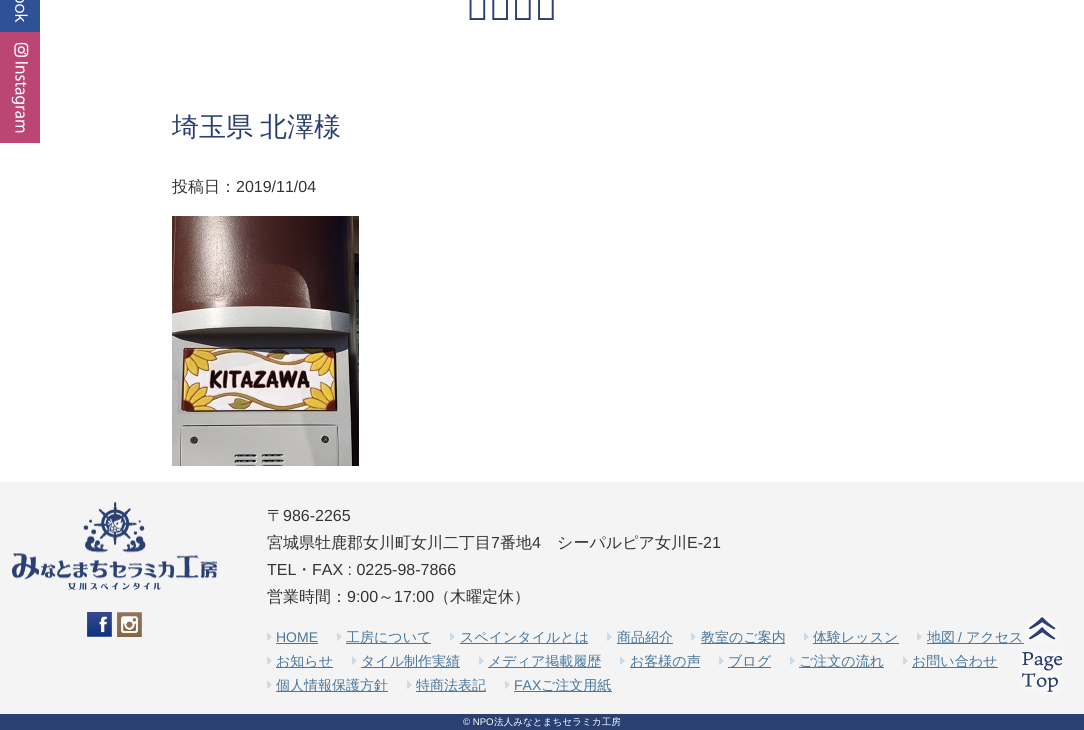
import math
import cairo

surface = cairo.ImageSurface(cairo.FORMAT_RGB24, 1084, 730)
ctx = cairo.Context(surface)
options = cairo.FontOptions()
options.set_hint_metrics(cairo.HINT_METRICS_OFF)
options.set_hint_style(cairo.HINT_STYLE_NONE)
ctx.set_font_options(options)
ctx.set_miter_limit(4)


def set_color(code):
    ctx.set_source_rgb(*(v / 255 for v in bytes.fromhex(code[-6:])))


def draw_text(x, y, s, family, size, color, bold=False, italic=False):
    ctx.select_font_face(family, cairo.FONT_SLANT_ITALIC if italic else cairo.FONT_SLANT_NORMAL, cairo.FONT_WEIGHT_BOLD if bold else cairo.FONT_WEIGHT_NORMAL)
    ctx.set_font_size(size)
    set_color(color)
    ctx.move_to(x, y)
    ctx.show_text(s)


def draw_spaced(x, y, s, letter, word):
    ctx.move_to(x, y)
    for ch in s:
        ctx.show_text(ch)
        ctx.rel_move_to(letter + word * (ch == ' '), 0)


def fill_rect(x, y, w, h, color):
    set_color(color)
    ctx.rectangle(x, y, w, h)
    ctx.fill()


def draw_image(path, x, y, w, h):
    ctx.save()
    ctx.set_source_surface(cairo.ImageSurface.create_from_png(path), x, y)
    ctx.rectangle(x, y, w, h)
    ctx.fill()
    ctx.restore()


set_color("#ffffff")
ctx.paint()
draw_image("assets/img1.png", 0, 0, 40, 32)
draw_image("assets/img2.png", 0, 32, 40, 111)
draw_text(466, 20, "お知らせ", "Noto Sans", 38, "#2a4073")
ctx.select_font_face("WenQuanYi Zen Hei Medium")
ctx.set_font_size(27)
draw_spaced(172, 136, "埼玉県 北澤様", 0, -1)
draw_text(172, 192, "投稿日：", "WenQuanYi Zen Hei Medium", 16, "#333333")
draw_text(236, 192, "2019/11/04", "Liberation Sans", 16, "#333333")
draw_image("assets/img3.png", 172, 216, 187, 250)
fill_rect(0, 482, 1084, 232, "#f4f4f4")
draw_image("assets/img4.png", 12, 502, 205, 88)
draw_image("assets/img5.png", 87, 612, 25, 25)
draw_image("assets/img6.png", 117, 612, 25, 25)
draw_text(267, 521, "〒", "WenQuanYi Zen Hei Medium", 16, "#333333")
draw_text(283, 521, "986-2265", "Liberation Sans", 16, "#333333")
draw_text(267, 548, "宮城県牡鹿郡女川町女川二丁目", "WenQuanYi Zen Hei Medium", 16, "#333333")
draw_text(491, 548, "7", "Liberation Sans", 16, "#333333")
draw_text(500, 548, "番地", "WenQuanYi Zen Hei Medium", 16, "#333333")
draw_text(532, 548, "4", "Liberation Sans", 16, "#333333")
draw_text(557, 548, "シーパルピア女川", "WenQuanYi Zen Hei Medium", 16, "#333333")
draw_text(687, 548, "E-21", "Liberation Sans", 16, "#333333")
draw_text(267, 575, "TEL", "Liberation Sans", 16, "#333333")
draw_text(296, 575, "・", "WenQuanYi Zen Hei Medium", 16, "#333333")
draw_text(312, 575, "FAX : 0225-98-7866", "Liberation Sans", 16, "#333333")
draw_text(267, 602, "営業時間：", "WenQuanYi Zen Hei Medium", 16, "#333333")
draw_text(347, 602, "9:00", "Liberation Sans", 16, "#333333")
draw_text(378, 602, "～", "WenQuanYi Zen Hei Medium", 16, "#333333")
draw_text(394, 602, "17:00", "Liberation Sans", 16, "#333333")
draw_text(434, 602, "（木曜定休）", "WenQuanYi Zen Hei Medium", 16, "#333333")
draw_image("assets/img7.png", 267, 632, 5, 9)
draw_text(276, 642, "HOME", "Liberation Sans", 14, "#49769b")
fill_rect(276, 643, 42, 1, "#49769b")
draw_image("assets/img7.png", 337, 632, 5, 9)
fill_rect(346, 643, 85, 1, "#49769b")
draw_text(346, 642, "工房について", "WenQuanYi Zen Hei Medium", 14, "#49769b")
draw_image("assets/img7.png", 450, 632, 5, 9)
fill_rect(460, 643, 128, 1, "#49769b")
draw_text(460, 642, "スペインタイルとは", "WenQuanYi Zen Hei Medium", 14, "#49769b")
draw_image("assets/img7.png", 607, 632, 5, 9)
fill_rect(617, 643, 56, 1, "#49769b")
draw_text(617, 642, "商品紹介", "WenQuanYi Zen Hei Medium", 14, "#49769b")
draw_image("assets/img7.png", 691, 632, 5, 9)
fill_rect(701, 643, 84, 1, "#49769b")
draw_text(701, 642, "教室のご案内", "WenQuanYi Zen Hei Medium", 14, "#49769b")
draw_image("assets/img7.png", 804, 632, 5, 9)
fill_rect(813, 643, 86, 1, "#49769b")
draw_text(813, 642, "体験レッスン", "WenQuanYi Zen Hei Medium", 14, "#49769b")
draw_image("assets/img7.png", 917, 632, 5, 9)
fill_rect(927, 643, 97, 1, "#49769b")
draw_text(927, 642, "地図", "WenQuanYi Zen Hei Medium", 14, "#49769b")
draw_text(958, 642, "/", "Liberation Sans", 14, "#49769b")
draw_text(966, 642, "アクセス", "WenQuanYi Zen Hei Medium", 14, "#49769b")
draw_image("assets/img7.png", 267, 656, 5, 9)
fill_rect(276, 667, 57, 1, "#49769b")
draw_text(276, 666, "お知らせ", "WenQuanYi Zen Hei Medium", 14, "#49769b")
draw_image("assets/img7.png", 352, 656, 5, 9)
fill_rect(361, 667, 99, 1, "#49769b")
draw_text(361, 666, "タイル制作実績", "WenQuanYi Zen Hei Medium", 14, "#49769b")
draw_image("assets/img7.png", 479, 656, 5, 9)
fill_rect(488, 667, 113, 1, "#49769b")
draw_text(488, 666, "メディア掲載履歴", "WenQuanYi Zen Hei Medium", 14, "#49769b")
draw_image("assets/img7.png", 620, 656, 5, 9)
fill_rect(630, 667, 70, 1, "#49769b")
draw_text(630, 666, "お客様の声", "WenQuanYi Zen Hei Medium", 14, "#49769b")
draw_image("assets/img7.png", 719, 656, 5, 9)
fill_rect(728, 667, 43, 1, "#49769b")
draw_text(728, 666, "ブログ", "WenQuanYi Zen Hei Medium", 14, "#49769b")
draw_image("assets/img7.png", 790, 656, 5, 9)
fill_rect(799, 667, 85, 1, "#49769b")
draw_text(799, 666, "ご注文の流れ", "WenQuanYi Zen Hei Medium", 14, "#49769b")
draw_image("assets/img7.png", 903, 656, 5, 9)
fill_rect(912, 667, 86, 1, "#49769b")
draw_text(912, 666, "お問い合わせ", "WenQuanYi Zen Hei Medium", 14, "#49769b")
draw_image("assets/img7.png", 267, 680, 5, 9)
fill_rect(276, 691, 112, 1, "#49769b")
draw_text(276, 690, "個人情報保護方針", "WenQuanYi Zen Hei Medium", 14, "#49769b")
draw_image("assets/img7.png", 407, 680, 5, 9)
fill_rect(416, 691, 70, 1, "#49769b")
draw_text(416, 690, "特商法表記", "WenQuanYi Zen Hei Medium", 14, "#49769b")
draw_image("assets/img7.png", 505, 680, 5, 9)
draw_text(514, 690, "FAX", "Liberation Sans", 14, "#49769b")
fill_rect(514, 691, 98, 1, "#49769b")
draw_text(541, 690, "ご注文用紙", "WenQuanYi Zen Hei Medium", 14, "#49769b")
draw_image("assets/img8.png", 1020, 616, 44, 78)
fill_rect(0, 714, 1084, 16, "#2a4073")
draw_text(463, 725, "© NPO", "Liberation Sans", 9.6, "#ffffff")
draw_text(494, 725, "法人みなとまちセラミカ工房", "WenQuanYi Zen Hei Medium", 9.6, "#ffffff")
surface.write_to_png("output.png")
